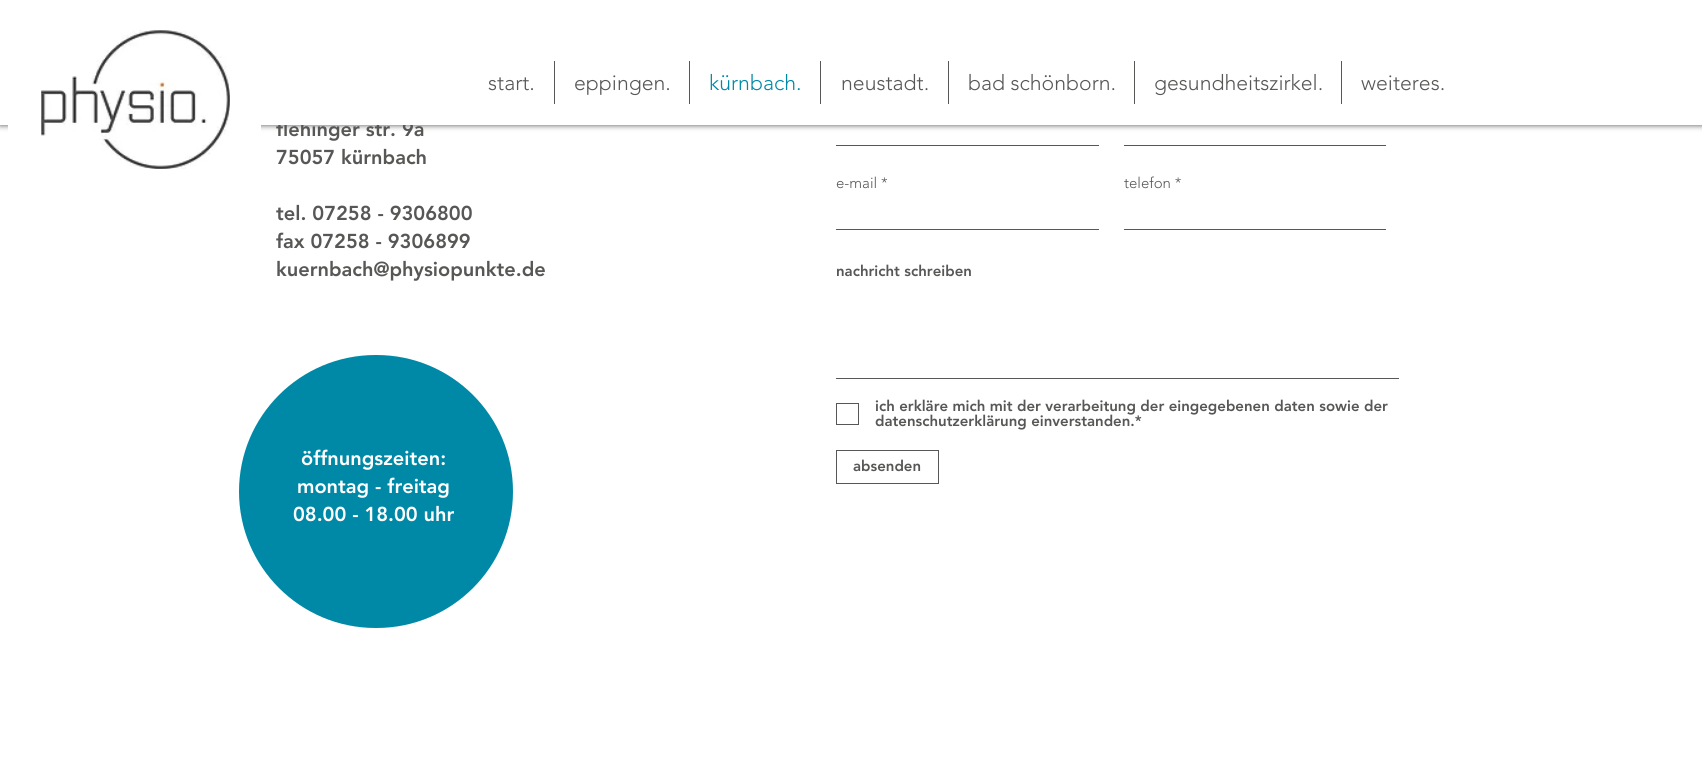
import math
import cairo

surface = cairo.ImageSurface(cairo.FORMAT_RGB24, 1702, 757)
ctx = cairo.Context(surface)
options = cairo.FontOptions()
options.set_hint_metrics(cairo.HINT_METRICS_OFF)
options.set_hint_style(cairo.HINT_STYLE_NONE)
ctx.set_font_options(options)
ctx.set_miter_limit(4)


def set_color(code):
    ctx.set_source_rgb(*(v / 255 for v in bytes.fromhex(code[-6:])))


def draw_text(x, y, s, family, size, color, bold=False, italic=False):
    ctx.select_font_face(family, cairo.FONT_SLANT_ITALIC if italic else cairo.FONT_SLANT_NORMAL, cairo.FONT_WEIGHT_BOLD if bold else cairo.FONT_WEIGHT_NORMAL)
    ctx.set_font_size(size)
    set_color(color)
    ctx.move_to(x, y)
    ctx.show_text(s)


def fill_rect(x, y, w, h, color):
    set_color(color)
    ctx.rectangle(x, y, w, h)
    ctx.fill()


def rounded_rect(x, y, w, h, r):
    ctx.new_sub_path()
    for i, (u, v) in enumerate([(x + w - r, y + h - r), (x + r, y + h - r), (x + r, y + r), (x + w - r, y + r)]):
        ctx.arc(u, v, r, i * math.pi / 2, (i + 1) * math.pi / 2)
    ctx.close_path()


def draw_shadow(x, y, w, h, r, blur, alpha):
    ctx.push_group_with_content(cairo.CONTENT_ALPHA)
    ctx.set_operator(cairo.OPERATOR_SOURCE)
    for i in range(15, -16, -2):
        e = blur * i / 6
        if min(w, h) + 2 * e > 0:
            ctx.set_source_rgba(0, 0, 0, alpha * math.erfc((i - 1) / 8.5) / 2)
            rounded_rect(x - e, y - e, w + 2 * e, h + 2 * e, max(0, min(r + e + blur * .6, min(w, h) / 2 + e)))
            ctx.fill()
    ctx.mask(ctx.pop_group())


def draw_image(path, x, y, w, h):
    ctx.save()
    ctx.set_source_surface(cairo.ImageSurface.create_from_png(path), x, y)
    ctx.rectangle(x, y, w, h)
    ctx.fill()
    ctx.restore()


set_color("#ffffff")
ctx.paint()
set_color("#000000")
draw_shadow(0, 0, 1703, 125, 0, 3, 0.7)
draw_text(276, 136, "flehinger str. 9a", "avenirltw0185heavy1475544 Black", 20, "#575756")
fill_rect(0, 0, 1702, 125, "#ffffff")
fill_rect(8, 125, 253, 7, "#ffffff")
draw_image("assets/img1.png", 41, 30, 189, 139)
draw_text(488, 90, "start.", "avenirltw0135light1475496 Light", 21.25, "#575756")
fill_rect(554, 61, 1, 43, "#575756")
draw_text(574, 90, "eppingen.", "avenirltw0135light1475496 Light", 21.25, "#575756")
fill_rect(689, 61, 1, 43, "#575756")
draw_text(709, 90, "kürnbach.", "avenirltw0135light1475496 Light", 21.25, "#0089a7")
fill_rect(820, 61, 1, 43, "#575756")
draw_text(841, 90, "neustadt.", "avenirltw0135light1475496 Light", 21.25, "#575756")
fill_rect(948, 61, 1, 43, "#575756")
draw_text(968, 90, "bad schönborn.", "avenirltw0135light1475496 Light", 21.25, "#575756")
fill_rect(1134, 61, 1, 43, "#575756")
draw_text(1154, 90, "gesundheitszirkel.", "avenirltw0135light1475496 Light", 21.25, "#575756")
fill_rect(1341, 61, 1, 43, "#575756")
draw_text(1361, 90, "weiteres.", "avenirltw0135light1475496 Light", 21.25, "#575756")
draw_text(276, 164, "75057 kürnbach", "avenirltw0185heavy1475544 Black", 20, "#575756")
draw_text(276, 220, "tel. 07258 - 9306800", "avenirltw0185heavy1475544 Black", 20, "#575756")
draw_text(276, 248, "fax 07258 - 9306899", "avenirltw0185heavy1475544 Black", 20, "#575756")
draw_text(276, 276, "kuernbach@physiopunkte.de", "avenirltw0185heavy1475544 Black", 20, "#575756")
fill_rect(836, 145, 263, 1, "#575756")
fill_rect(1124, 145, 262, 1, "#575756")
draw_text(836, 188, "e-mail *", "avenirltw0135light1475496 Light", 15, "#575756")
fill_rect(836, 229, 263, 1, "#575756")
draw_text(1124, 188, "telefon *", "avenirltw0135light1475496 Light", 15, "#575756")
fill_rect(1124, 229, 262, 1, "#575756")
draw_text(836, 276, "nachricht schreiben", "avenirltw0185heavy1475544 Black", 15, "#575756")
fill_rect(836, 378, 563, 1, "#575756")
ctx.rectangle(836.5, 403.5, 22, 21)
ctx.set_line_width(1)
ctx.stroke()
draw_text(875, 411, "ich erkläre mich mit der verarbeitung der eingegebenen daten sowie der", "avenirltw0185heavy1475544 Black", 15, "#575756")
draw_text(875, 426, "datenschutzerklärung einverstanden.*", "avenirltw0185heavy1475544 Black", 15, "#575756")
ctx.rectangle(836.5, 450.5, 102, 33)
ctx.stroke()
draw_text(853, 471, "absenden", "avenirltw0185heavy1475544 Black", 15, "#575756")
set_color("#0089a7")
rounded_rect(239, 355, 274, 273, 136.5)
ctx.fill()
draw_text(301, 465, "öffnungszeiten:", "avenirltw0185heavy1475544 Black", 20, "#ffffff")
draw_text(297, 493, "montag - freitag", "avenirltw0185heavy1475544 Black", 20, "#ffffff")
draw_text(293, 521, "08.00 - 18.00 uhr", "avenirltw0185heavy1475544 Black", 20, "#ffffff")
surface.write_to_png("output.png")
